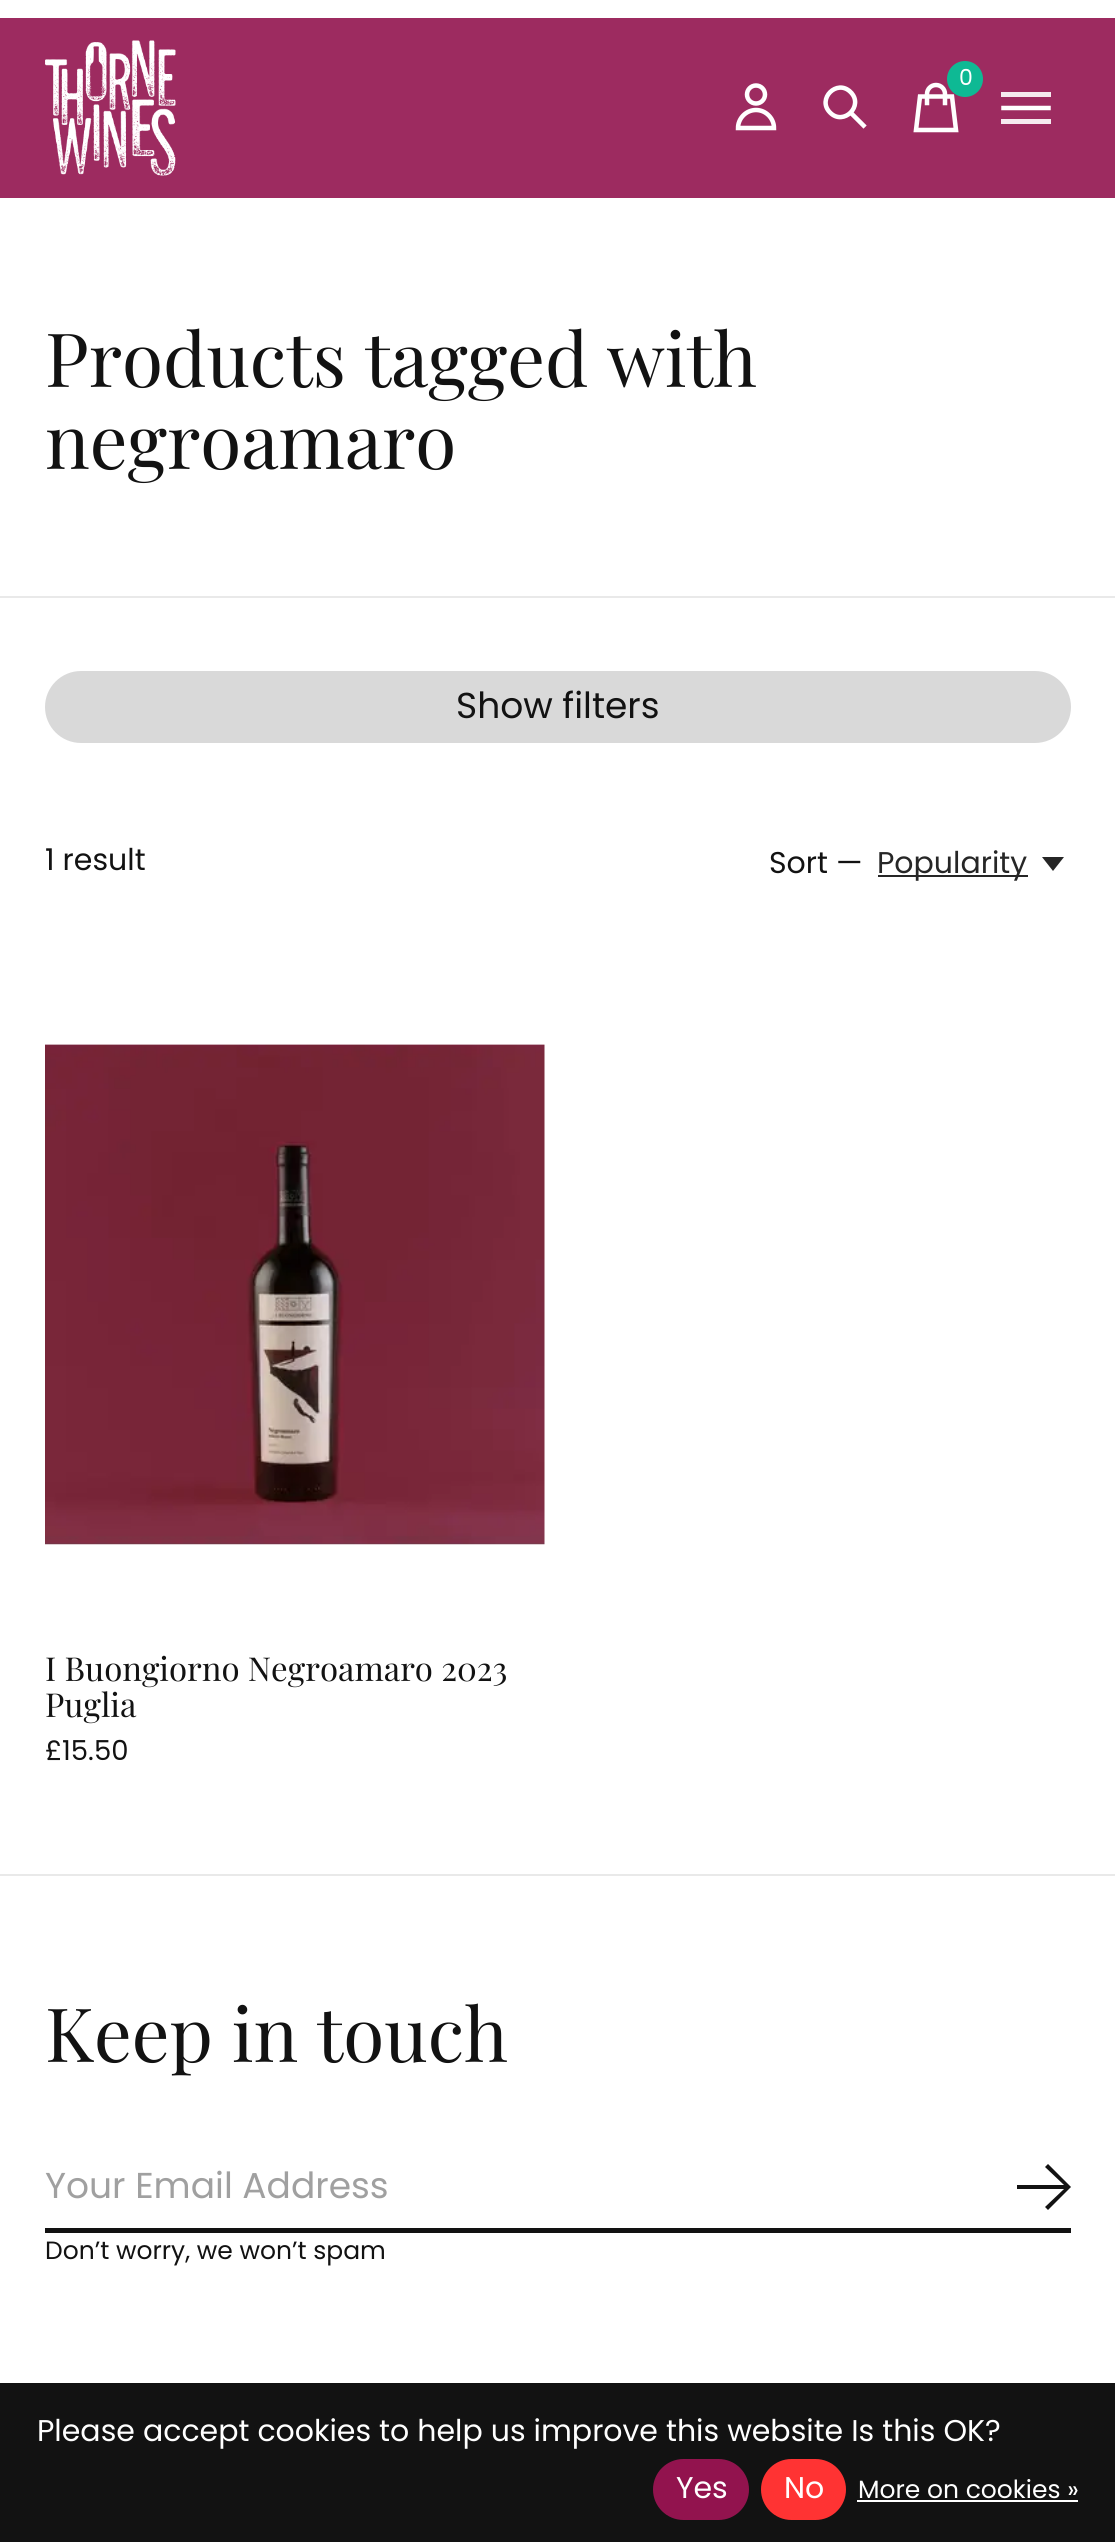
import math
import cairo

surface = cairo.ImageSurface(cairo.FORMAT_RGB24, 1115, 2542)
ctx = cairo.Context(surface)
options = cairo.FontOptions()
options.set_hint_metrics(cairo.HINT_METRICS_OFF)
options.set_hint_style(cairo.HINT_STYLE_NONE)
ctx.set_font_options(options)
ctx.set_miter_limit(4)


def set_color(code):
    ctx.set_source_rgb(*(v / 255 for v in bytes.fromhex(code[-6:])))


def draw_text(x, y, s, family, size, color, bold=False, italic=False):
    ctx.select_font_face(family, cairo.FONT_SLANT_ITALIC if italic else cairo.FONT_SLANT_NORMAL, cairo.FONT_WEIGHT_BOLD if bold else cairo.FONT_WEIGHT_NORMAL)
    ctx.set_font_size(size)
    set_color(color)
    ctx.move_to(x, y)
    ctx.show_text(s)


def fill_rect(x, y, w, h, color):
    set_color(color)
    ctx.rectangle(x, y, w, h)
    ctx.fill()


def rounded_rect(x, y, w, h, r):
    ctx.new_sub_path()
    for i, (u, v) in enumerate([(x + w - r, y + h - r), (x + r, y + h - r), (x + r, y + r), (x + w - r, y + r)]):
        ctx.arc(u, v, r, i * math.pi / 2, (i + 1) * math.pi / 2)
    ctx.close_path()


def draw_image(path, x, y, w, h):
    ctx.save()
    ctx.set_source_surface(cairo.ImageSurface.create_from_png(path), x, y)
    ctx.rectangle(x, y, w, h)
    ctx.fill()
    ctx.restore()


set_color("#ffffff")
ctx.paint()
fill_rect(0, 18, 1115, 180, "#9d2b60")
draw_image("assets/img1.png", 45, 40, 131, 136)
ctx.new_path()
ctx.move_to(956, 130)
ctx.line_to(916, 130)
ctx.line_to(920, 96.5)
ctx.line_to(952, 96.5)
ctx.close_path()
ctx.move_to(927, 103)
ctx.line_to(927, 94)
ctx.curve_to(927, 89, 931, 85, 936, 85)
ctx.curve_to(941, 85, 945, 89, 945, 94)
ctx.line_to(945, 103)
set_color("#ffffff")
ctx.set_line_width(4.5)
ctx.set_line_cap(cairo.LINE_CAP_SQUARE)
ctx.stroke()
set_color("#0eb994")
ctx.arc(965, 79, 18, 0, 2 * math.pi)
ctx.fill()
draw_text(959, 85, "0", "Poppins", 22, "#ffffff")
ctx.new_path()
ctx.arc(756, 94.5, 9, 0, 2 * math.pi)
ctx.set_line_cap(cairo.LINE_CAP_BUTT)
ctx.stroke()
ctx.new_path()
ctx.move_to(756, 110)
ctx.curve_to(746, 110, 738, 118.5, 738, 128)
ctx.line_to(774, 128)
ctx.curve_to(774, 118.5, 766, 110, 756, 110)
ctx.close_path()
ctx.set_line_cap(cairo.LINE_CAP_SQUARE)
ctx.stroke()
ctx.new_path()
ctx.move_to(851, 113)
ctx.line_to(863.5, 125.5)
ctx.move_to(850.5, 92)
ctx.curve_to(864.5, 105.5, 843.5, 126.5, 830, 112.5)
ctx.curve_to(816.5, 99, 837, 78.5, 850.5, 92)
ctx.stroke()
fill_rect(1001, 92, 50, 5, "#f5eaef")
ctx.new_path()
ctx.move_to(1003.5, 108)
ctx.line_to(1048.5, 108)
set_color("#ffffff")
ctx.stroke()
fill_rect(1001, 119, 50, 5, "#f5eaef")
fill_rect(0, 596, 1115, 2, "#e9e9e9")
draw_text(45, 387, "Products tagged with", "Playfair Display", 74.75, "#121212")
draw_text(45, 469, "negroamaro", "Playfair Display", 74.75, "#121212")
fill_rect(0, 1874, 1115, 2, "#e9e9e9")
set_color("#d9d9d9")
rounded_rect(45, 671, 1026, 72, 36)
ctx.fill()
draw_text(456, 718, "Show filters", "Poppins", 36, "#121212")
draw_text(45, 870, "1 result", "Poppins", 30, "#121212")
draw_text(769, 873, "Sort —", "Poppins", 30, "#121212")
fill_rect(878, 875, 150, 2, "#262626")
draw_text(877, 873, "Popularity", "Poppins", 30, "#262626")
ctx.new_path()
ctx.move_to(1042, 857)
ctx.line_to(1053, 871)
ctx.line_to(1064, 857)
ctx.close_path()
ctx.fill()
draw_image("assets/img2.png", 45, 1044, 500, 501)
draw_text(45, 1681, "I Buongiorno Negroamaro 2023", "Playfair Display", 33, "#121212")
draw_text(45, 1717, "Puglia", "Playfair Display", 33, "#121212")
draw_text(45, 1760, "£15.50", "Poppins", 27.5, "#121212")
draw_text(45, 2062, "Keep in touch", "Playfair Display", 74.75, "#121212")
fill_rect(45, 2228, 1026, 5, "#121212")
draw_text(45, 2198, "Your Email Address", "Poppins", 36, "#a0a0a0")
set_color("#121212")
ctx.new_path()
ctx.move_to(1048, 2210)
ctx.line_to(1071, 2187)
ctx.line_to(1048, 2164)
ctx.line_to(1045, 2167)
ctx.line_to(1064, 2185)
ctx.line_to(1017, 2185)
ctx.line_to(1017, 2189)
ctx.line_to(1064, 2189)
ctx.line_to(1045, 2207)
ctx.close_path()
ctx.fill()
draw_text(45, 2259, "Don’t worry, we won’t spam", "Poppins", 25, "#121212")
fill_rect(0, 2383, 1115, 159, "#121212")
draw_text(37, 2441, "Please accept cookies to help us improve this website Is this OK?", "Poppins", 30, "#ffffff")
set_color("#92134e")
rounded_rect(653, 2459, 96, 61, 30.5)
ctx.fill()
draw_text(676, 2498, "Yes", "Poppins", 30, "#ffffff")
set_color("#ff3333")
rounded_rect(761, 2459, 85, 61, 30.5)
ctx.fill()
draw_text(784, 2498, "No", "Poppins", 30, "#ffffff")
draw_text(858, 2498, "More on cookies »", "Poppins", 25, "#ffffff")
fill_rect(857, 2500, 221, 2, "#ffffff")
surface.write_to_png("output.png")
